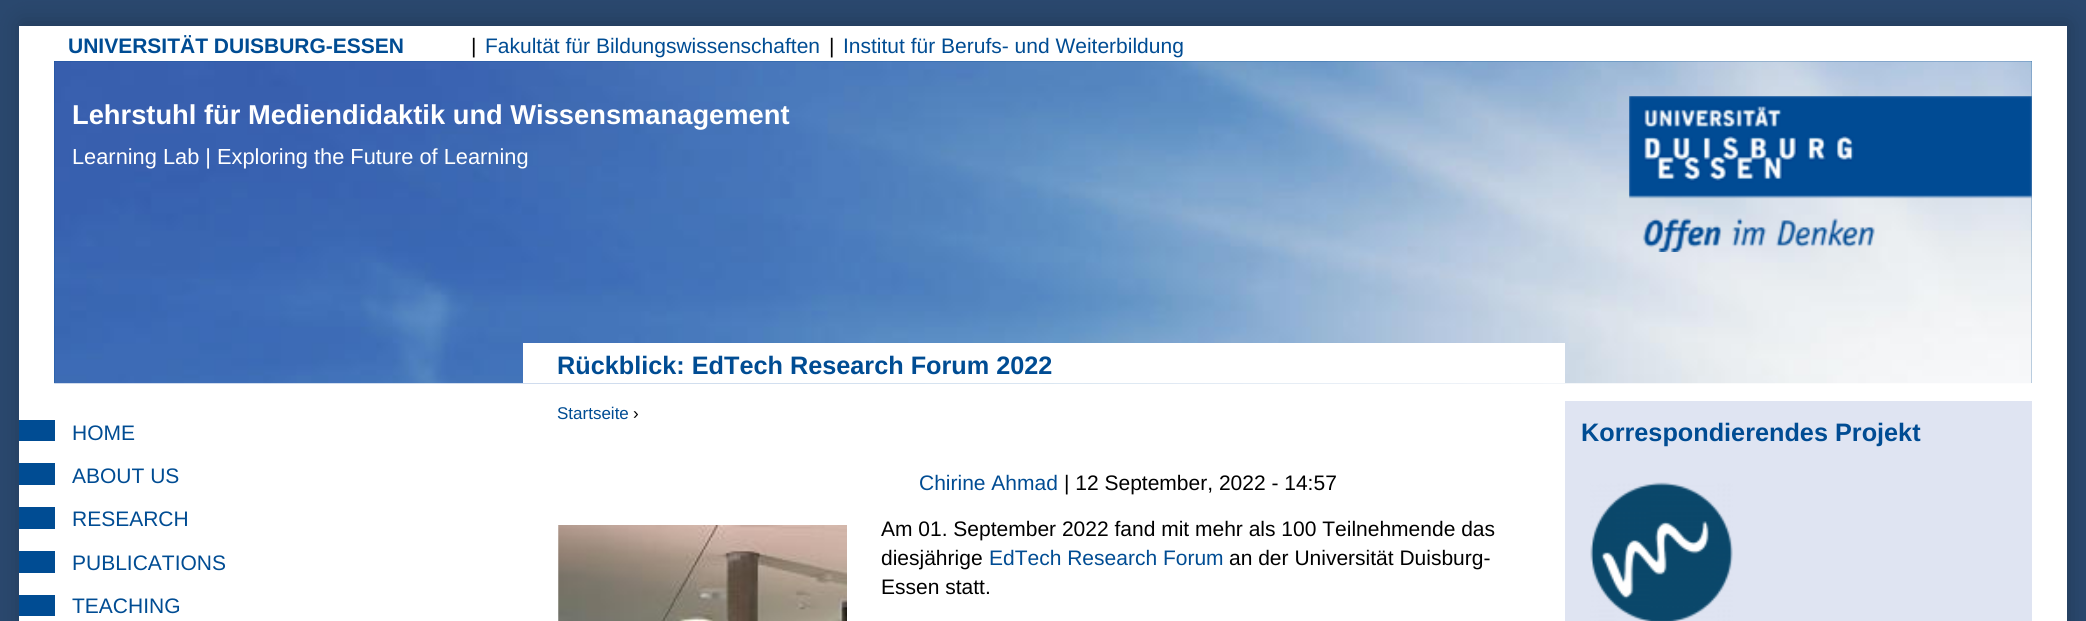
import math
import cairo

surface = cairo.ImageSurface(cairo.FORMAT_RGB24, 2086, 621)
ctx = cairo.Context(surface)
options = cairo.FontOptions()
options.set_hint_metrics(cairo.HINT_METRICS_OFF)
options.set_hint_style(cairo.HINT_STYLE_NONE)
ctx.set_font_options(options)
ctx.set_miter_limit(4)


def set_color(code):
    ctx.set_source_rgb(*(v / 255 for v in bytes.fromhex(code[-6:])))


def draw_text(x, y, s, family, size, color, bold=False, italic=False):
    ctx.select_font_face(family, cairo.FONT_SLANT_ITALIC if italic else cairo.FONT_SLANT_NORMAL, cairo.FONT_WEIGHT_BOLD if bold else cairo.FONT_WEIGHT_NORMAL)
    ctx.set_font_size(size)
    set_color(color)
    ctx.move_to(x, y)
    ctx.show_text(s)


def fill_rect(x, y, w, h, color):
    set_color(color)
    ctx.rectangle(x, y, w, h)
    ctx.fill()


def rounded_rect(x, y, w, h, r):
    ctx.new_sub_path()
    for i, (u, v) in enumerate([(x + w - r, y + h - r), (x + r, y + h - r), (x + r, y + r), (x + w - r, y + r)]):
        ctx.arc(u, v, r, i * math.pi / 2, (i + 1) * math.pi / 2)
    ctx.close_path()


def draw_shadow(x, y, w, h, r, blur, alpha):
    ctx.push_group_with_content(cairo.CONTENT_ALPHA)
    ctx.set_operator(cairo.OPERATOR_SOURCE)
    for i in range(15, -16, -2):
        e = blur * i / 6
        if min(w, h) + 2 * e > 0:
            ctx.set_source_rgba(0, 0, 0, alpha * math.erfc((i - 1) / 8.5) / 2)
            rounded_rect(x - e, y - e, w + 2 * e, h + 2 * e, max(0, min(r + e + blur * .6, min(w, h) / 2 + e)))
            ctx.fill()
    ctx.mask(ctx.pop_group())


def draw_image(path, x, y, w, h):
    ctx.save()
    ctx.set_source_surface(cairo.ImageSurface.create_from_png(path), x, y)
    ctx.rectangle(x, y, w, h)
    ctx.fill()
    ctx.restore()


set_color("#2a486e")
ctx.paint()
set_color("#000000")
draw_shadow(21, 23, 2048, 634, 0, 12, 0.2)
fill_rect(19, 26, 2048, 595, "#ffffff")
draw_text(68, 53, "UNIVERSITÄT DUISBURG-ESSEN", "Liberation Sans", 21, "#004c93", bold=True)
draw_text(471, 53, "|", "Liberation Sans", 21, "#000000")
draw_text(485, 53, "Fakultät für Bildungswissenschaften", "Liberation Sans", 21, "#004c93")
draw_text(829, 53, "|", "Liberation Sans", 21, "#000000")
draw_text(843, 53, "Institut für Berufs- und Weiterbildung", "Liberation Sans", 21, "#004c93")
fill_rect(54, 61, 1978, 322, "#004c93")
draw_image("assets/img1.png", 54, 61, 1978, 323)
draw_text(72, 124, "Lehrstuhl für Mediendidaktik und Wissensmanagement", "Liberation Sans", 27.3, "#ffffff", bold=True)
draw_text(72, 164, "Learning Lab | Exploring the Future of Learning", "Liberation Sans", 21.8, "#ffffff")
draw_image("assets/img2.png", 1629, 96, 403, 156)
fill_rect(523, 343, 1042, 40, "#ffffff")
draw_text(557, 374, "Rückblick: EdTech Research Forum 2022", "Liberation Sans", 25.25, "#004c93", bold=True)
fill_rect(19, 420, 36, 21, "#004c93")
draw_text(72, 440, "HOME", "Liberation Sans", 21, "#004c93")
fill_rect(19, 463, 36, 22, "#004c93")
draw_text(72, 483, "ABOUT US", "Liberation Sans", 21, "#004c93")
fill_rect(19, 507, 36, 22, "#004c93")
draw_text(72, 526, "RESEARCH", "Liberation Sans", 21, "#004c93")
fill_rect(19, 551, 36, 22, "#004c93")
draw_text(72, 570, "PUBLICATIONS", "Liberation Sans", 21, "#004c93")
fill_rect(19, 595, 36, 21, "#004c93")
draw_text(72, 613, "TEACHING", "Liberation Sans", 21, "#004c93")
draw_text(557, 419, "Startseite", "Liberation Sans", 17, "#004c93")
draw_text(633, 419, "›", "Liberation Sans", 17, "#000000")
draw_text(919, 490, "Chirine Ahmad", "Liberation Sans", 21, "#004c93")
draw_text(1064, 490, "| 12 September, 2022 - 14:57", "Liberation Sans", 21, "#000000")
draw_image("assets/img3.png", 558, 525, 289, 96)
draw_text(881, 536, "Am 01. September 2022 fand mit mehr als 100 Teilnehmende das", "Liberation Sans", 21, "#000000")
draw_text(881, 565, "diesjährige", "Liberation Sans", 21, "#000000")
draw_text(989, 565, "EdTech Research Forum", "Liberation Sans", 21, "#004c93")
draw_text(1229, 565, "an der Universität Duisburg-", "Liberation Sans", 21, "#000000")
draw_text(881, 594, "Essen statt.", "Liberation Sans", 21, "#000000")
fill_rect(1565, 401, 467, 220, "#dfe4f2")
draw_text(1581, 441, "Korrespondierendes Projekt", "Liberation Sans", 25.25, "#004c93", bold=True)
draw_image("assets/img4.png", 1590, 482, 143, 139)
surface.write_to_png("output.png")
